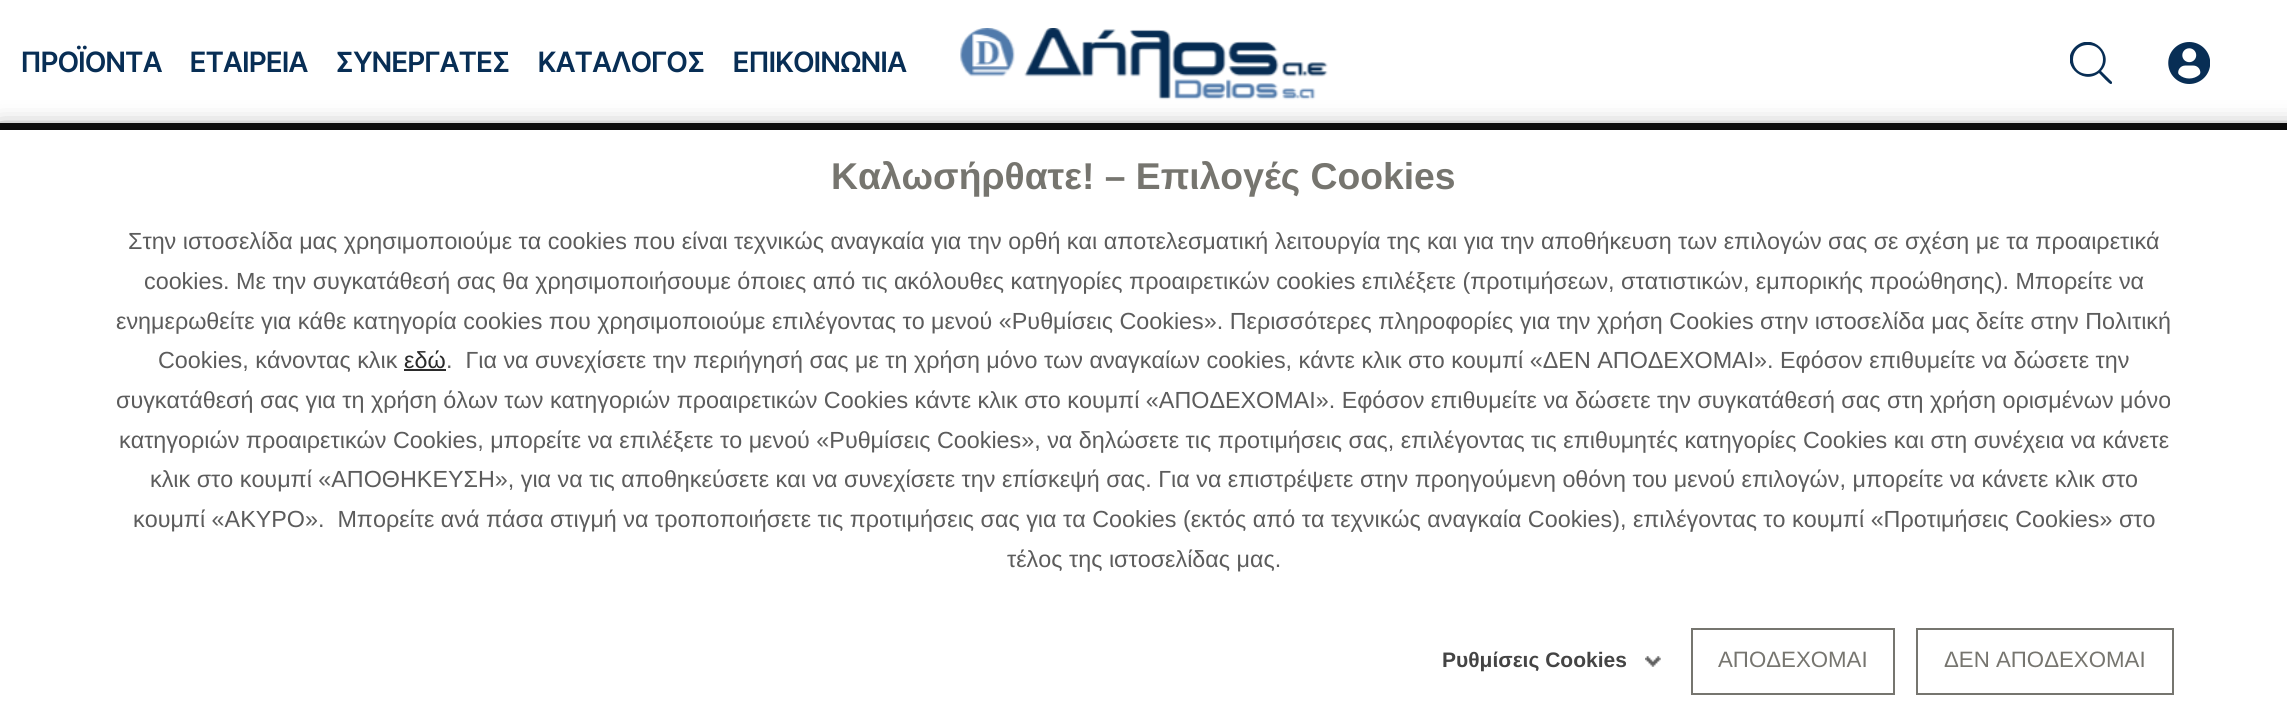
import math
import cairo

surface = cairo.ImageSurface(cairo.FORMAT_RGB24, 2287, 708)
ctx = cairo.Context(surface)
options = cairo.FontOptions()
options.set_hint_metrics(cairo.HINT_METRICS_OFF)
options.set_hint_style(cairo.HINT_STYLE_NONE)
ctx.set_font_options(options)
ctx.set_miter_limit(4)


def set_color(code):
    ctx.set_source_rgb(*(v / 255 for v in bytes.fromhex(code[-6:])))


def draw_text(x, y, s, family, size, color, bold=False, italic=False):
    ctx.select_font_face(family, cairo.FONT_SLANT_ITALIC if italic else cairo.FONT_SLANT_NORMAL, cairo.FONT_WEIGHT_BOLD if bold else cairo.FONT_WEIGHT_NORMAL)
    ctx.set_font_size(size)
    set_color(color)
    ctx.move_to(x, y)
    ctx.show_text(s)


def fill_rect(x, y, w, h, color):
    set_color(color)
    ctx.rectangle(x, y, w, h)
    ctx.fill()


def rounded_rect(x, y, w, h, r):
    ctx.new_sub_path()
    for i, (u, v) in enumerate([(x + w - r, y + h - r), (x + r, y + h - r), (x + r, y + r), (x + w - r, y + r)]):
        ctx.arc(u, v, r, i * math.pi / 2, (i + 1) * math.pi / 2)
    ctx.close_path()


def draw_shadow(x, y, w, h, r, blur, alpha):
    ctx.push_group_with_content(cairo.CONTENT_ALPHA)
    ctx.set_operator(cairo.OPERATOR_SOURCE)
    for i in range(15, -16, -2):
        e = blur * i / 6
        if min(w, h) + 2 * e > 0:
            ctx.set_source_rgba(0, 0, 0, alpha * math.erfc((i - 1) / 8.5) / 2)
            rounded_rect(x - e, y - e, w + 2 * e, h + 2 * e, max(0, min(r + e + blur * .6, min(w, h) / 2 + e)))
            ctx.fill()
    ctx.mask(ctx.pop_group())


def draw_image(path, x, y, w, h):
    ctx.save()
    ctx.set_source_surface(cairo.ImageSurface.create_from_png(path), x, y)
    ctx.rectangle(x, y, w, h)
    ctx.fill()
    ctx.restore()


set_color("#0b0b0b")
ctx.paint()
fill_rect(0, 0, 2287, 121, "#ffffff")
fill_rect(0, 121, 2287, 2, "#f2f2f2")
draw_text(21, 72, "ΠΡΟΪΟΝΤΑ", "Inter Tight SemiBold", 28, "#082e55")
draw_text(190, 72, "ΕΤΑΙΡΕΙΑ", "Inter Tight SemiBold", 28, "#082e55")
draw_text(336, 72, "ΣΥΝΕΡΓΑΤΕΣ", "Inter Tight SemiBold", 28, "#082e55")
draw_text(538, 72, "ΚΑΤΑΛΟΓΟΣ", "Inter Tight SemiBold", 28, "#082e55")
draw_text(733, 72, "ΕΠΙΚΟΙΝΩΝΙΑ", "Inter Tight SemiBold", 28, "#082e55")
draw_image("assets/img1.png", 960, 28, 368, 72)
ctx.save()
ctx.rectangle(2070, 42, 42, 42)
ctx.clip()
ctx.new_path()
ctx.move_to(2112, 82)
ctx.line_to(2101, 71)
ctx.curve_to(2116, 55, 2092, 31, 2075, 47)
ctx.curve_to(2059, 63, 2082, 86, 2099, 73)
ctx.curve_to(2101, 75, 2110, 85, 2111, 84)
ctx.curve_to(2112, 84, 2113, 82, 2112, 82)
ctx.close_path()
ctx.move_to(2088, 74)
ctx.curve_to(2068, 74, 2068, 45, 2088, 45)
ctx.curve_to(2108, 45, 2108, 74, 2088, 74)
ctx.close_path()
ctx.fill()
ctx.restore()
draw_image("assets/img2.png", 2168, 42, 42, 42)
set_color("#000000")
draw_shadow(0, 130, 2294, 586, 0, 12, 0.5)
fill_rect(0, 130, 2287, 578, "#ffffff")
draw_text(831, 189, "Καλωσήρθατε! – Επιλογές Cookies", "Liberation Sans", 37.3, "#76756f", bold=True)
draw_text(128, 249, "Στην ιστοσελίδα μας χρησιμοποιούμε τα cookies που είναι τεχνικώς αναγκαία για την ορθή και αποτελεσματική λειτουργία της και για την αποθήκευση των επιλογών σας σε σχέση με τα προαιρετικά", "Liberation Sans", 23.33, "#5c5c5c")
draw_text(144, 289, "cookies. Με την συγκατάθεσή σας θα χρησιμοποιήσουμε όποιες από τις ακόλουθες κατηγορίες προαιρετικών cookies επιλέξετε (προτιμήσεων, στατιστικών, εμπορικής προώθησης). Μπορείτε να", "Liberation Sans", 23.33, "#5c5c5c")
draw_text(116, 329, "ενημερωθείτε για κάθε κατηγορία cookies που χρησιμοποιούμε επιλέγοντας το μενού «Ρυθμίσεις Cookies». Περισσότερες πληροφορίες για την χρήση Cookies στην ιστοσελίδα μας δείτε στην Πολιτική", "Liberation Sans", 23.33, "#5c5c5c")
draw_text(158, 368, "Cookies, κάνοντας κλικ", "Liberation Sans", 23.33, "#5c5c5c")
draw_text(404, 368, "εδώ", "Liberation Sans", 23.33, "#2a2a2a")
fill_rect(404, 369, 42, 2, "#2a2a2a")
draw_text(446, 368, ".  Για να συνεχίσετε την περιήγησή σας με τη χρήση μόνο των αναγκαίων cookies, κάντε κλικ στο κουμπί «ΔΕΝ ΑΠΟΔΕΧΟΜΑΙ». Εφόσον επιθυμείτε να δώσετε την", "Liberation Sans", 23.33, "#5c5c5c")
draw_text(116, 408, "συγκατάθεσή σας για τη χρήση όλων των κατηγοριών προαιρετικών Cookies κάντε κλικ στο κουμπί «ΑΠΟΔΕΧΟΜΑΙ». Εφόσον επιθυμείτε να δώσετε την συγκατάθεσή σας στη χρήση ορισμένων μόνο", "Liberation Sans", 23.33, "#5c5c5c")
draw_text(119, 448, "κατηγοριών προαιρετικών Cookies, μπορείτε να επιλέξετε το μενού «Ρυθμίσεις Cookies», να δηλώσετε τις προτιμήσεις σας, επιλέγοντας τις επιθυμητές κατηγορίες Cookies και στη συνέχεια να κάνετε", "Liberation Sans", 23.33, "#5c5c5c")
draw_text(150, 487, "κλικ στο κουμπί «ΑΠΟΘΗΚΕΥΣΗ», για να τις αποθηκεύσετε και να συνεχίσετε την επίσκεψή σας. Για να επιστρέψετε στην προηγούμενη οθόνη του μενού επιλογών, μπορείτε να κάνετε κλικ στο", "Liberation Sans", 23.33, "#5c5c5c")
draw_text(133, 527, "κουμπί «ΑΚΥΡΟ».  Μπορείτε ανά πάσα στιγμή να τροποποιήσετε τις προτιμήσεις σας για τα Cookies (εκτός από τα τεχνικώς αναγκαία Cookies), επιλέγοντας το κουμπί «Προτιμήσεις Cookies» στο", "Liberation Sans", 23.33, "#5c5c5c")
draw_text(1007, 567, "τέλος της ιστοσελίδας μας.", "Liberation Sans", 23.33, "#5c5c5c")
draw_image("assets/img3.png", 1645, 656, 16, 11)
draw_text(1442, 667, "Ρυθμίσεις Cookies", "Liberation Sans", 21, "#444444", bold=True)
ctx.rectangle(1692, 629, 202, 65)
set_color("#76756f")
ctx.stroke()
draw_text(1718, 667, "ΑΠΟΔΕΧΟΜΑΙ", "Liberation Sans", 22.25, "#76756f")
ctx.rectangle(1917, 629, 256, 65)
ctx.stroke()
draw_text(1944, 667, "ΔΕΝ ΑΠΟΔΕΧΟΜΑΙ", "Liberation Sans", 22.25, "#76756f")
surface.write_to_png("output.png")
